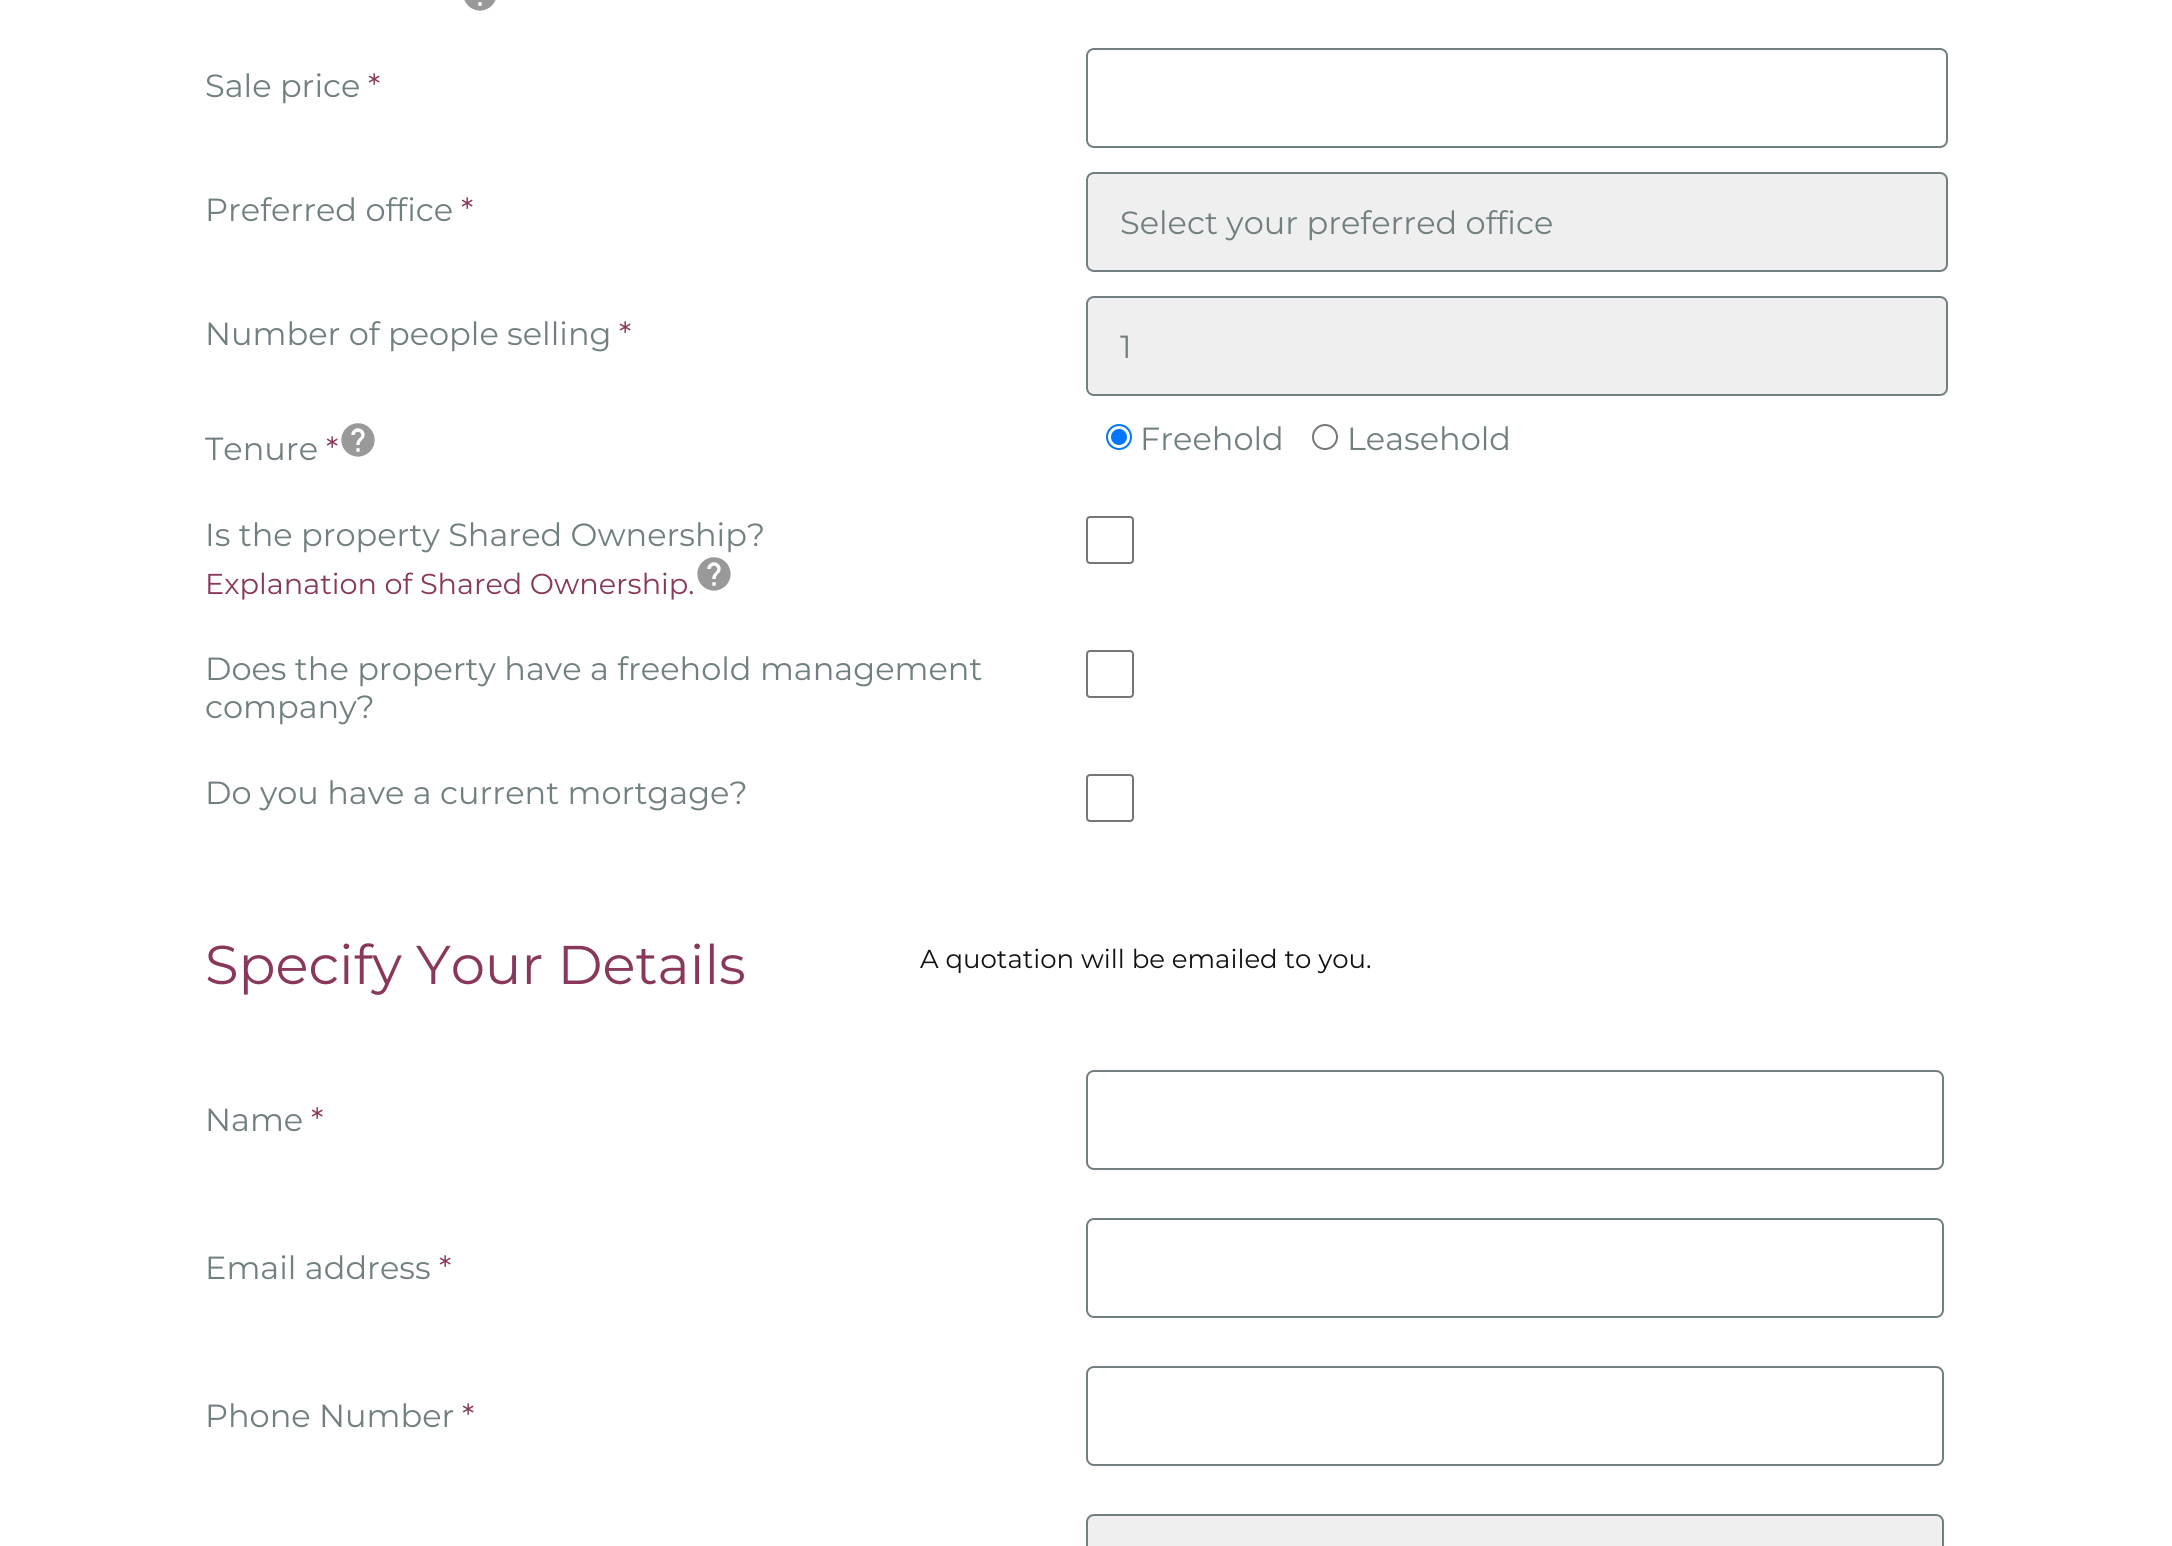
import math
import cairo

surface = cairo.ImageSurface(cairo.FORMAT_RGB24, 2172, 1546)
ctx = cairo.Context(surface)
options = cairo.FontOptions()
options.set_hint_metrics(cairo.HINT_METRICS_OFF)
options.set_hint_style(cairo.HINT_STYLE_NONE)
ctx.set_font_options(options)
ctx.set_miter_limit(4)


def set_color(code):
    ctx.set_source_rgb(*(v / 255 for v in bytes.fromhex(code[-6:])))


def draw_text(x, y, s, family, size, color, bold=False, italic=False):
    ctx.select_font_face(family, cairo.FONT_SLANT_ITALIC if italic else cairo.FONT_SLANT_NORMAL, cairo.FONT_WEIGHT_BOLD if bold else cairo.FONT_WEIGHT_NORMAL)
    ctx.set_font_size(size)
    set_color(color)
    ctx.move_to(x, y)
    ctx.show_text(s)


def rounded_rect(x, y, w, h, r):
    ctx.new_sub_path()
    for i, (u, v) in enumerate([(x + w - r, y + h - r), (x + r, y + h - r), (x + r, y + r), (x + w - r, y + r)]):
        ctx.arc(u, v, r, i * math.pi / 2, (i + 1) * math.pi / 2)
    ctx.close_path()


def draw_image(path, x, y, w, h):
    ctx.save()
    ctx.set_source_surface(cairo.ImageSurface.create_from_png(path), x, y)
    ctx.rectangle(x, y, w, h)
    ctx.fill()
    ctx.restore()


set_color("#ffffff")
ctx.paint()
draw_image("assets/img1.png", 464, 0, 32, 11)
draw_text(205, 97, "Sale price", "Montserrat", 32, "#717f81")
draw_text(368, 97, "*", "Montserrat", 32, "#89375b")
rounded_rect(1087, 49, 860, 98, 7)
set_color("#717f81")
ctx.stroke()
draw_text(205, 221, "Preferred office", "Montserrat", 32, "#717f81")
draw_text(461, 221, "*", "Montserrat", 32, "#89375b")
set_color("#efefef")
rounded_rect(1087, 173, 860, 98, 7)
ctx.fill_preserve()
set_color("#717f81")
ctx.stroke()
draw_text(1120, 234, "Select your preferred office", "Montserrat", 32, "#717f81")
draw_text(205, 345, "Number of people selling", "Montserrat", 32, "#717f81")
draw_text(619, 345, "*", "Montserrat", 32, "#89375b")
set_color("#efefef")
rounded_rect(1087, 297, 860, 98, 7)
ctx.fill_preserve()
set_color("#717f81")
ctx.stroke()
draw_text(1120, 358, "1", "Montserrat", 32, "#717f81")
draw_text(205, 460, "Tenure", "Montserrat", 32, "#717f81")
draw_text(326, 460, "*", "Montserrat", 32, "#89375b")
draw_image("assets/img2.png", 341, 423, 34, 34)
ctx.arc(1119, 437, 12, 0, 2 * math.pi)
set_color("#0075ff")
ctx.stroke()
ctx.arc(1119, 437, 8, 0, 2 * math.pi)
ctx.fill()
draw_text(1140, 450, "Freehold", "Montserrat", 32, "#717f81")
ctx.new_path()
ctx.arc(1325, 437, 12, 0, 2 * math.pi)
set_color("#767676")
ctx.stroke()
draw_text(1347, 450, "Leasehold", "Montserrat", 32, "#717f81")
draw_text(205, 546, "Is the property Shared Ownership?", "Montserrat", 32, "#717f81")
draw_text(205, 594, "Explanation of Shared Ownership.", "Montserrat", 28.75, "#89375b")
draw_image("assets/img2.png", 697, 557, 34, 34)
rounded_rect(1087, 517, 46, 46, 3)
set_color("#767676")
ctx.stroke()
draw_text(205, 680, "Does the property have a freehold management", "Montserrat", 32, "#717f81")
draw_text(205, 718, "company?", "Montserrat", 32, "#717f81")
rounded_rect(1087, 651, 46, 46, 3)
set_color("#767676")
ctx.stroke()
draw_text(205, 804, "Do you have a current mortgage?", "Montserrat", 32, "#717f81")
rounded_rect(1087, 775, 46, 46, 3)
set_color("#767676")
ctx.stroke()
draw_text(205, 984, "Specify Your Details", "Montserrat", 54.5, "#89375b")
draw_text(920, 968, "A quotation will be emailed to you.", "Montserrat", 26, "#111111")
draw_text(205, 1131, "Name", "Montserrat", 32, "#717f81")
draw_text(311, 1131, "*", "Montserrat", 32, "#89375b")
rounded_rect(1087, 1071, 856, 98, 7)
set_color("#717f81")
ctx.stroke()
draw_text(205, 1279, "Email address", "Montserrat", 32, "#717f81")
draw_text(439, 1279, "*", "Montserrat", 32, "#89375b")
rounded_rect(1087, 1219, 856, 98, 7)
set_color("#717f81")
ctx.stroke()
draw_text(205, 1427, "Phone Number", "Montserrat", 32, "#717f81")
draw_text(462, 1427, "*", "Montserrat", 32, "#89375b")
rounded_rect(1087, 1367, 856, 98, 7)
set_color("#717f81")
ctx.stroke()
set_color("#efefef")
rounded_rect(1087, 1515, 856, 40, 7)
ctx.fill_preserve()
set_color("#717f81")
ctx.stroke()
surface.write_to_png("output.png")
